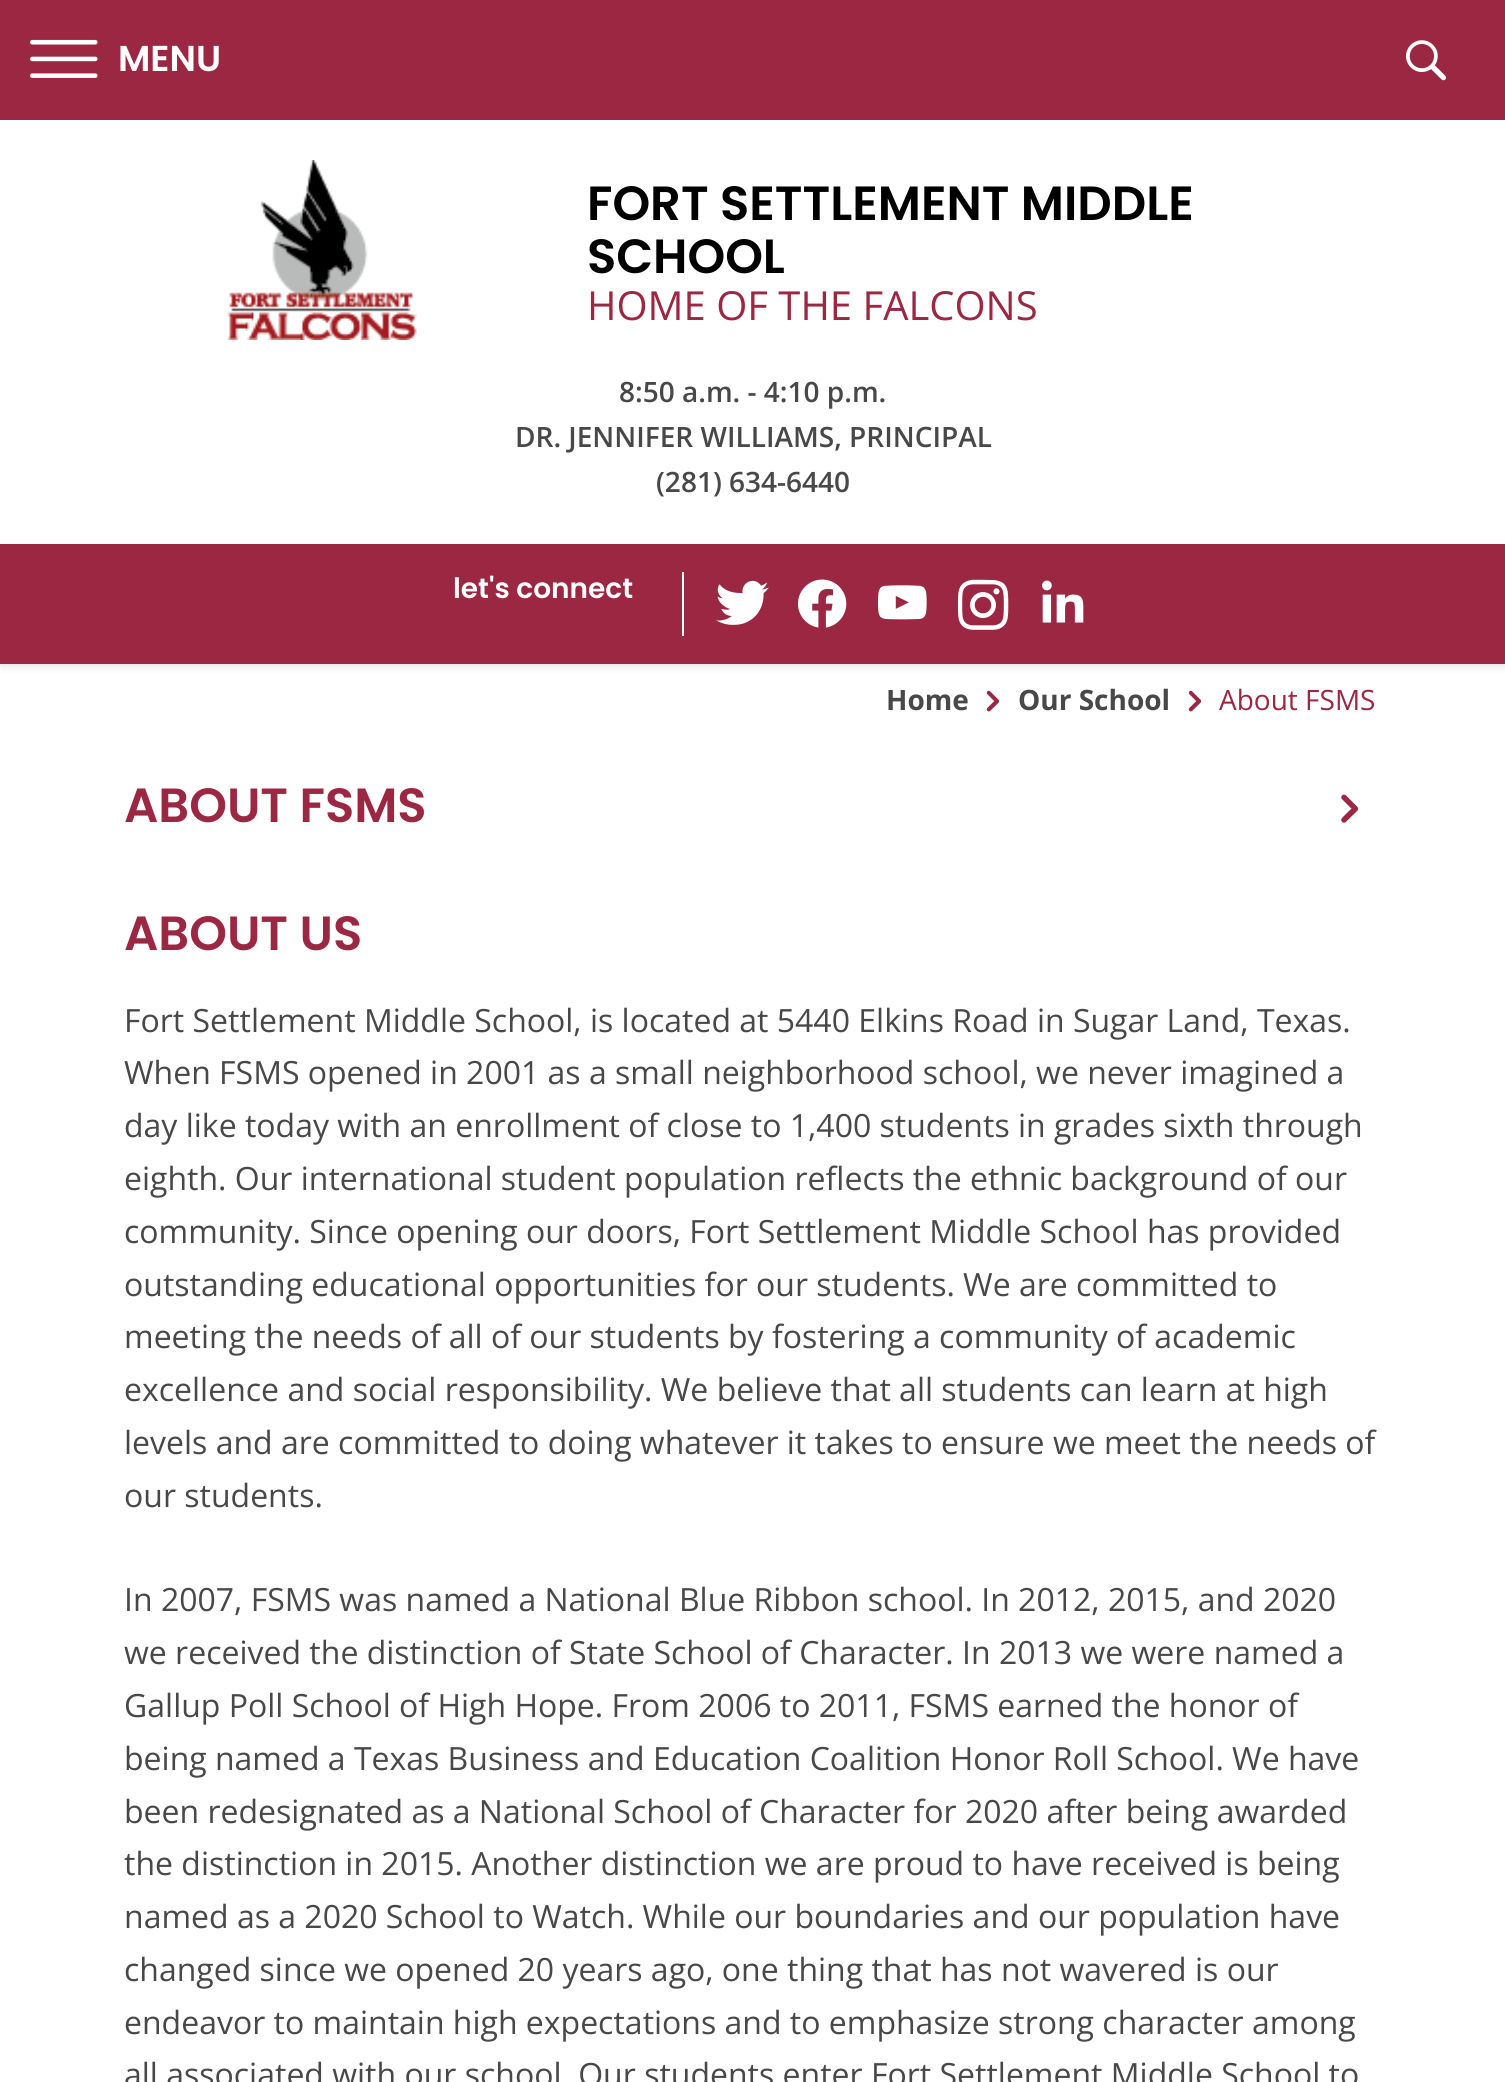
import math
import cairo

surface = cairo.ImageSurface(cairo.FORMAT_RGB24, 1505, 2082)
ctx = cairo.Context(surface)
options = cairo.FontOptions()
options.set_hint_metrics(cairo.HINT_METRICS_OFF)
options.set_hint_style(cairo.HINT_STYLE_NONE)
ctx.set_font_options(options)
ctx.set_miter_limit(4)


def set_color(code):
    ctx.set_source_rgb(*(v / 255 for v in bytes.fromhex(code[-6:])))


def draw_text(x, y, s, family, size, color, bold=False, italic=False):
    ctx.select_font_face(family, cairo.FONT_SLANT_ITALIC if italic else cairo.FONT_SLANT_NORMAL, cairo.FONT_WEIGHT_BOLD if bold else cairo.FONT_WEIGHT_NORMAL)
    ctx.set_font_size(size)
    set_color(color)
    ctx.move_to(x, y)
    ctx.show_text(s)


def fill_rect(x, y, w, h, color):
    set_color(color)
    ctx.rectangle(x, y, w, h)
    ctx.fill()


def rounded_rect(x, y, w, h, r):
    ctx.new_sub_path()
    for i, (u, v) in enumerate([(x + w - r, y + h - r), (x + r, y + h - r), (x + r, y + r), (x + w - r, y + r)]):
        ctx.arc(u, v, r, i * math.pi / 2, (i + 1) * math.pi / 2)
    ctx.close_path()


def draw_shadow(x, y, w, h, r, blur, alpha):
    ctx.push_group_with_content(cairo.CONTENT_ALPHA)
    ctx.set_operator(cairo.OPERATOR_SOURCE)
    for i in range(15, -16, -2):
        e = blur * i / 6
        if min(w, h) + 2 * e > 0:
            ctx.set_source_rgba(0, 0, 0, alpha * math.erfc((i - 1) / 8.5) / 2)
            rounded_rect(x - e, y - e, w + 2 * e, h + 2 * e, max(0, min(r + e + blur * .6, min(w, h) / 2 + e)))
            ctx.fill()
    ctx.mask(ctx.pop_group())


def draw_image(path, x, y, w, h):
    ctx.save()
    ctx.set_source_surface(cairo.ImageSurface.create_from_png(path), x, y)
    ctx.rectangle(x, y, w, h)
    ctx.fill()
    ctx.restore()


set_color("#ffffff")
ctx.paint()
fill_rect(0, 0, 1505, 120, "#9b2743")
draw_image("assets/img1.png", 30, 39, 68, 39)
draw_text(118, 71, "MENU", "Poppins SemiBold", 36, "#ffffff")
draw_image("assets/img2.png", 1406, 40, 40, 41)
set_color("#000000")
draw_shadow(0, 544, 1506, 120, 0, 6, 0.16)
fill_rect(0, 535, 1505, 9, "#ffffff")
draw_image("assets/img3.png", 227, 160, 190, 180)
draw_text(587, 220, "FORT SETTLEMENT MIDDLE", "Poppins SemiBold", 48, "#000000")
draw_text(587, 273, "SCHOOL", "Poppins SemiBold", 48, "#000000")
draw_text(587, 320, "HOME OF THE FALCONS", "Open Sans", 40, "#9b2743")
draw_text(619, 402, "8:50 a.m. - 4:10 p.m.", "Open Sans SemiBold", 28, "#484848")
draw_text(515, 447, "DR. JENNIFER WILLIAMS, PRINCIPAL", "Open Sans SemiBold", 28, "#484848")
draw_text(656, 492, "(281) 634-6440", "Open Sans SemiBold", 28, "#484848")
fill_rect(0, 544, 1505, 120, "#9b2743")
draw_text(453, 598, "let's connect", "Poppins SemiBold", 28, "#ffffff")
fill_rect(682, 572, 2, 64, "#ffffff")
draw_image("assets/img4.png", 716, 580, 53, 45)
draw_image("assets/img5.png", 798, 579, 49, 49)
draw_image("assets/img6.png", 878, 585, 49, 35)
draw_image("assets/img7.png", 957, 579, 52, 51)
draw_image("assets/img8.png", 1042, 580, 42, 43)
draw_text(886, 710, "Home", "Open Sans", 28, "#484848", bold=True)
draw_image("assets/img9.png", 986, 690, 14, 22)
draw_text(1018, 710, "Our School", "Open Sans", 28, "#484848", bold=True)
draw_image("assets/img9.png", 1188, 690, 14, 22)
draw_text(1219, 710, "About FSMS", "Open Sans", 28, "#9b2743")
draw_text(124, 822, "ABOUT FSMS", "Poppins SemiBold", 48, "#9b2743")
draw_image("assets/img10.png", 1341, 794, 18, 29)
draw_text(124, 950, "ABOUT US", "Poppins SemiBold", 48, "#9b2743")
draw_text(124, 1032, "Fort Settlement Middle School, is located at 5440 Elkins Road in Sugar Land, Texas.", "Open Sans", 32, "#484848")
draw_text(124, 1084, "When FSMS opened in 2001 as a small neighborhood school, we never imagined a", "Open Sans", 32, "#484848")
draw_text(124, 1137, "day like today with an enrollment of close to 1,400 students in grades sixth through", "Open Sans", 32, "#484848")
draw_text(124, 1190, "eighth. Our international student population reflects the ethnic background of our", "Open Sans", 32, "#484848")
draw_text(124, 1243, "community. Since opening our doors, Fort Settlement Middle School has provided", "Open Sans", 32, "#484848")
draw_text(124, 1296, "outstanding educational opportunities for our students. We are committed to", "Open Sans", 32, "#484848")
draw_text(124, 1348, "meeting the needs of all of our students by fostering a community of academic", "Open Sans", 32, "#484848")
draw_text(124, 1401, "excellence and social responsibility. We believe that all students can learn at high", "Open Sans", 32, "#484848")
draw_text(124, 1454, "levels and are committed to doing whatever it takes to ensure we meet the needs of", "Open Sans", 32, "#484848")
draw_text(124, 1507, "our students.", "Open Sans", 32, "#484848")
draw_text(124, 1611, "In 2007, FSMS was named a National Blue Ribbon school. In 2012, 2015, and 2020", "Open Sans", 32, "#484848")
draw_text(124, 1664, "we received the distinction of State School of Character. In 2013 we were named a", "Open Sans", 32, "#484848")
draw_text(124, 1717, "Gallup Poll School of High Hope. From 2006 to 2011, FSMS earned the honor of", "Open Sans", 32, "#484848")
draw_text(124, 1770, "being named a Texas Business and Education Coalition Honor Roll School. We have", "Open Sans", 32, "#484848")
draw_text(124, 1823, "been redesignated as a National School of Character for 2020 after being awarded", "Open Sans", 32, "#484848")
draw_text(124, 1875, "the distinction in 2015. Another distinction we are proud to have received is being", "Open Sans", 32, "#484848")
draw_text(124, 1928, "named as a 2020 School to Watch. While our boundaries and our population have", "Open Sans", 32, "#484848")
draw_text(124, 1981, "changed since we opened 20 years ago, one thing that has not wavered is our", "Open Sans", 32, "#484848")
draw_text(124, 2034, "endeavor to maintain high expectations and to emphasize strong character among", "Open Sans", 32, "#484848")
draw_text(124, 2086, "all associated with our school. Our students enter Fort Settlement Middle School to", "Open Sans", 32, "#484848")
surface.write_to_png("output.png")
